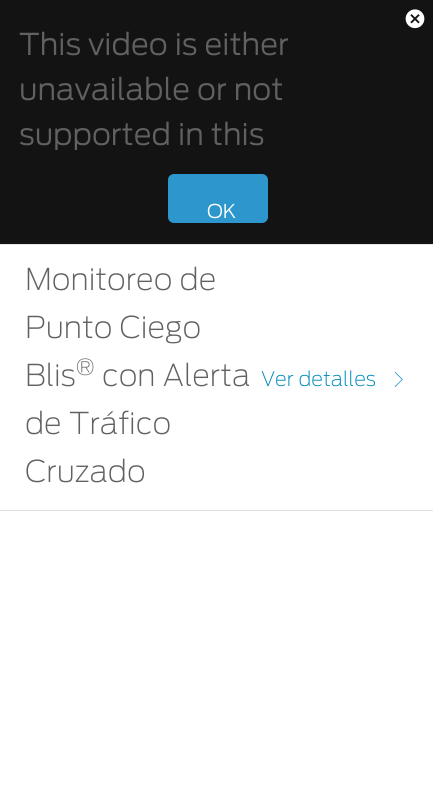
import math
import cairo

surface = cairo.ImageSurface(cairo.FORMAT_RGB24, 433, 809)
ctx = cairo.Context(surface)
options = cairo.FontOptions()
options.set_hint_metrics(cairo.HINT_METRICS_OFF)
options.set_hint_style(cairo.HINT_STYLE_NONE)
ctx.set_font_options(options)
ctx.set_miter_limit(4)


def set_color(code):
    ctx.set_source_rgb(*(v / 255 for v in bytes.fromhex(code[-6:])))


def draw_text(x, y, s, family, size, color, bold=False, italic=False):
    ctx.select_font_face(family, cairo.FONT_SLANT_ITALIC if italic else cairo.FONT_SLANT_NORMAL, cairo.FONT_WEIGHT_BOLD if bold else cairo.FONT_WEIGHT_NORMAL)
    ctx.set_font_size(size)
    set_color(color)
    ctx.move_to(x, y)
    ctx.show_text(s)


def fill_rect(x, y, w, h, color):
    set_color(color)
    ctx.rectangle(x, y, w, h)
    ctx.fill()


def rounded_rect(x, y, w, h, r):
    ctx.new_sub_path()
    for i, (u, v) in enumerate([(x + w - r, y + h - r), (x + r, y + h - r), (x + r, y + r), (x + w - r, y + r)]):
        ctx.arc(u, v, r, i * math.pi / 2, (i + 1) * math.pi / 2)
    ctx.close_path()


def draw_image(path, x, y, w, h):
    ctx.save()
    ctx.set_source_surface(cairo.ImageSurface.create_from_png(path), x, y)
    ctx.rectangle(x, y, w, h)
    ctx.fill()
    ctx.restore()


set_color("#ffffff")
ctx.paint()
fill_rect(0, 0, 433, 244, "#131313")
draw_image("assets/img1.png", 405, 9, 20, 20)
draw_text(19, 55, "This video is either", "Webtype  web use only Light", 30, "#616161")
draw_text(19, 100, "unavailable or not", "Webtype  web use only Light", 30, "#616161")
draw_text(19, 145, "supported in this", "Webtype  web use only Light", 30, "#616161")
set_color("#2d96cd")
rounded_rect(168, 174, 100, 49, 6)
ctx.fill()
draw_text(207, 218, "OK", "Webtype  web use only Light", 19, "#ffffff")
fill_rect(0, 244, 433, 1, "#e7e7e7")
draw_text(25, 290, "Monitoreo de", "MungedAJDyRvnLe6 ExtraLight", 30, "#616161")
draw_text(25, 338, "Punto Ciego", "MungedAJDyRvnLe6 ExtraLight", 30, "#616161")
draw_text(25, 386, "Blis", "MungedAJDyRvnLe6 ExtraLight", 30, "#616161")
draw_text(76, 375, "®", "MungedAJDyRvnLe6 ExtraLight", 22, "#616161")
draw_text(102, 386, "con Alerta", "MungedAJDyRvnLe6 ExtraLight", 30, "#616161")
draw_text(25, 434, "de Tráfico", "MungedAJDyRvnLe6 ExtraLight", 30, "#616161")
draw_text(25, 482, "Cruzado", "MungedAJDyRvnLe6 ExtraLight", 30, "#616161")
draw_text(261, 386, "Ver detalles", "MungedAJDyRvnLe6 ExtraLight", 20, "#008cba")
draw_image("assets/img2.png", 394, 372, 9, 16)
fill_rect(0, 510, 433, 1, "#e0e0e0")
surface.write_to_png("output.png")
